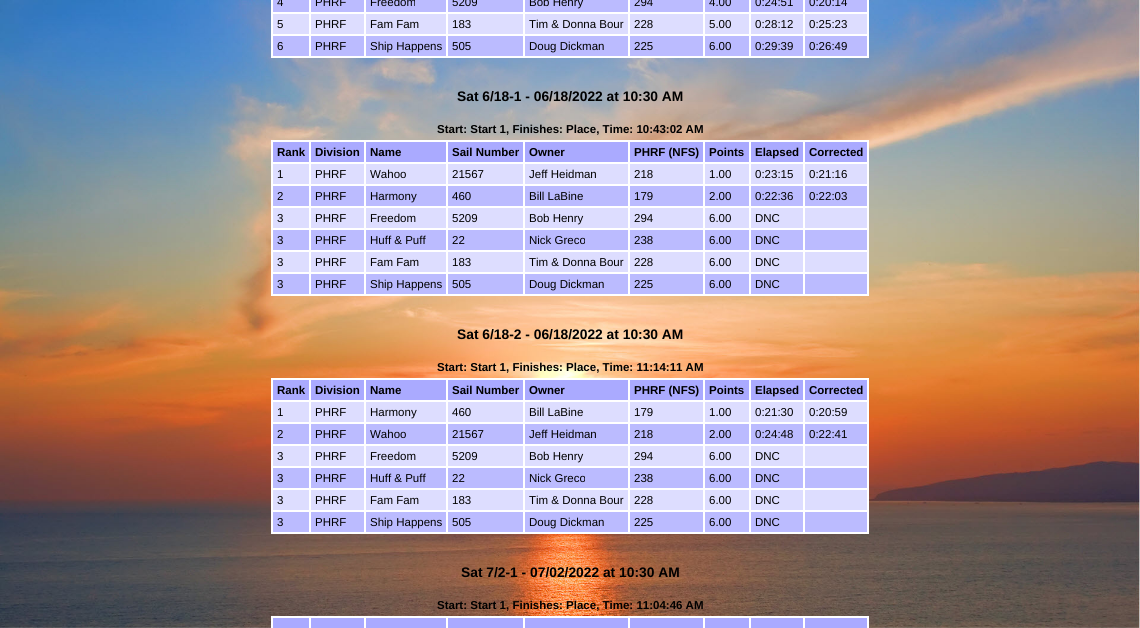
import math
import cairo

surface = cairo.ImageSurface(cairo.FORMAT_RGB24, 1140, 628)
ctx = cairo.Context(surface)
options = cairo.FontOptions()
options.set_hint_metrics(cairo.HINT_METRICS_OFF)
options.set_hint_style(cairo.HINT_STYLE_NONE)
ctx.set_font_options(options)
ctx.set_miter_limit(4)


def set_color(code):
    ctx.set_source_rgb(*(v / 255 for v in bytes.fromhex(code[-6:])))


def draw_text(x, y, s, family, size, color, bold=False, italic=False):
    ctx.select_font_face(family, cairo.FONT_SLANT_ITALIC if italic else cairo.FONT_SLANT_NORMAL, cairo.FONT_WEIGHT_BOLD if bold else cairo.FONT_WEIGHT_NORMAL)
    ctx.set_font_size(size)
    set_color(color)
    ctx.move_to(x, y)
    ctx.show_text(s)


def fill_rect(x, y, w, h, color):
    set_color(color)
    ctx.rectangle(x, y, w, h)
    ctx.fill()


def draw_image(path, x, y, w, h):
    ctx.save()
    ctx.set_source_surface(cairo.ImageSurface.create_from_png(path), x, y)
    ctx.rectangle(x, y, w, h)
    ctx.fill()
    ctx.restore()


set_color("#ffffff")
ctx.paint()
draw_image("assets/img1.png", 0, 0, 1140, 628)
fill_rect(273, 0, 594, 12, "#bbbbff")
draw_text(277, 6, "4", "Liberation Sans", 11.5, "#000000")
fill_rect(803, 12, 66, 2, "#ffffff")
fill_rect(273, 14, 594, 20, "#ddddff")
fill_rect(803, 34, 66, 2, "#ffffff")
fill_rect(273, 36, 594, 20, "#bbbbff")
fill_rect(867, 34, 2, 24, "#ffffff")
fill_rect(803, 56, 66, 2, "#ffffff")
fill_rect(803, 34, 2, 24, "#ffffff")
fill_rect(749, 34, 56, 2, "#ffffff")
fill_rect(803, 12, 2, 24, "#ffffff")
fill_rect(749, 12, 56, 2, "#ffffff")
fill_rect(749, 56, 56, 2, "#ffffff")
fill_rect(749, 34, 2, 24, "#ffffff")
fill_rect(703, 34, 48, 2, "#ffffff")
fill_rect(749, 12, 2, 24, "#ffffff")
fill_rect(703, 12, 48, 2, "#ffffff")
fill_rect(703, 56, 48, 2, "#ffffff")
fill_rect(703, 34, 2, 24, "#ffffff")
fill_rect(628, 34, 77, 2, "#ffffff")
fill_rect(703, 12, 2, 24, "#ffffff")
fill_rect(628, 12, 77, 2, "#ffffff")
fill_rect(628, 56, 77, 2, "#ffffff")
fill_rect(628, 34, 2, 24, "#ffffff")
fill_rect(523, 34, 107, 2, "#ffffff")
fill_rect(628, 12, 2, 24, "#ffffff")
fill_rect(523, 12, 107, 2, "#ffffff")
fill_rect(523, 56, 107, 2, "#ffffff")
fill_rect(523, 34, 2, 24, "#ffffff")
fill_rect(446, 34, 79, 2, "#ffffff")
fill_rect(523, 12, 2, 24, "#ffffff")
fill_rect(446, 12, 79, 2, "#ffffff")
fill_rect(446, 56, 79, 2, "#ffffff")
fill_rect(446, 34, 2, 24, "#ffffff")
fill_rect(364, 34, 84, 2, "#ffffff")
fill_rect(446, 12, 2, 24, "#ffffff")
fill_rect(364, 12, 84, 2, "#ffffff")
fill_rect(364, 56, 84, 2, "#ffffff")
fill_rect(364, 34, 2, 24, "#ffffff")
fill_rect(309, 34, 57, 2, "#ffffff")
fill_rect(364, 12, 2, 24, "#ffffff")
fill_rect(309, 12, 57, 2, "#ffffff")
fill_rect(309, 56, 57, 2, "#ffffff")
fill_rect(309, 34, 2, 24, "#ffffff")
fill_rect(271, 34, 40, 2, "#ffffff")
fill_rect(309, 12, 2, 24, "#ffffff")
fill_rect(271, 12, 40, 2, "#ffffff")
fill_rect(309, 0, 2, 14, "#ffffff")
draw_text(315, 6, "PHRF", "Liberation Sans", 11.5, "#000000")
fill_rect(364, 0, 2, 14, "#ffffff")
draw_text(370, 6, "Freedom", "Liberation Sans", 11.5, "#000000")
fill_rect(446, 0, 2, 14, "#ffffff")
draw_text(452, 6, "5209", "Liberation Sans", 11.5, "#000000")
fill_rect(523, 0, 2, 14, "#ffffff")
draw_text(529, 6, "Bob Henry", "Liberation Sans", 11.5, "#000000")
fill_rect(628, 0, 2, 14, "#ffffff")
draw_text(634, 6, "294", "Liberation Sans", 11.5, "#000000")
fill_rect(703, 0, 2, 14, "#ffffff")
draw_text(709, 6, "4.00", "Liberation Sans", 11.5, "#000000")
fill_rect(749, 0, 2, 14, "#ffffff")
draw_text(755, 6, "0:24:51", "Liberation Sans", 11.5, "#000000")
fill_rect(803, 0, 2, 14, "#ffffff")
draw_text(809, 6, "0:20:14", "Liberation Sans", 11.5, "#000000")
fill_rect(271, 56, 40, 2, "#ffffff")
fill_rect(271, 34, 2, 24, "#ffffff")
fill_rect(271, 0, 2, 36, "#ffffff")
draw_text(277, 28, "5", "Liberation Sans", 11.5, "#000000")
draw_text(315, 28, "PHRF", "Liberation Sans", 11.5, "#000000")
draw_text(370, 28, "Fam Fam", "Liberation Sans", 11.5, "#000000")
draw_text(452, 28, "183", "Liberation Sans", 11.5, "#000000")
draw_text(529, 28, "Tim & Donna Bour", "Liberation Sans", 11.5, "#000000")
draw_text(634, 28, "228", "Liberation Sans", 11.5, "#000000")
draw_text(709, 28, "5.00", "Liberation Sans", 11.5, "#000000")
draw_text(755, 28, "0:28:12", "Liberation Sans", 11.5, "#000000")
fill_rect(867, 0, 2, 36, "#ffffff")
draw_text(809, 28, "0:25:23", "Liberation Sans", 11.5, "#000000")
draw_text(277, 50, "6", "Liberation Sans", 11.5, "#000000")
draw_text(315, 50, "PHRF", "Liberation Sans", 11.5, "#000000")
draw_text(370, 50, "Ship Happens", "Liberation Sans", 11.5, "#000000")
draw_text(452, 50, "505", "Liberation Sans", 11.5, "#000000")
draw_text(529, 50, "Doug Dickman", "Liberation Sans", 11.5, "#000000")
draw_text(634, 50, "225", "Liberation Sans", 11.5, "#000000")
draw_text(709, 50, "6.00", "Liberation Sans", 11.5, "#000000")
draw_text(755, 50, "0:29:39", "Liberation Sans", 11.5, "#000000")
draw_text(809, 50, "0:26:49", "Liberation Sans", 11.5, "#000000")
draw_text(457, 101, "Sat 6/18-1 - 06/18/2022 at 10:30 AM", "Liberation Sans", 13.8, "#000000", bold=True)
draw_text(437, 133, "Start: Start 1, Finishes: Place, Time: 10:43:02 AM", "Liberation Sans", 11.5, "#000000", bold=True)
fill_rect(273, 142, 36, 20, "#aaaaff")
fill_rect(803, 140, 66, 2, "#ffffff")
fill_rect(803, 162, 66, 2, "#ffffff")
fill_rect(273, 164, 594, 20, "#ddddff")
fill_rect(803, 184, 66, 2, "#ffffff")
fill_rect(273, 186, 594, 20, "#bbbbff")
fill_rect(803, 206, 66, 2, "#ffffff")
fill_rect(273, 208, 594, 20, "#ddddff")
fill_rect(803, 228, 66, 2, "#ffffff")
fill_rect(273, 230, 594, 20, "#bbbbff")
fill_rect(803, 250, 66, 2, "#ffffff")
fill_rect(273, 252, 594, 20, "#ddddff")
fill_rect(803, 272, 66, 2, "#ffffff")
fill_rect(273, 274, 594, 20, "#bbbbff")
fill_rect(867, 272, 2, 24, "#ffffff")
fill_rect(803, 294, 66, 2, "#ffffff")
fill_rect(803, 272, 2, 24, "#ffffff")
fill_rect(749, 272, 56, 2, "#ffffff")
fill_rect(803, 250, 2, 24, "#ffffff")
fill_rect(749, 250, 56, 2, "#ffffff")
fill_rect(803, 228, 2, 24, "#ffffff")
fill_rect(749, 228, 56, 2, "#ffffff")
fill_rect(803, 206, 2, 24, "#ffffff")
fill_rect(749, 206, 56, 2, "#ffffff")
fill_rect(803, 184, 2, 24, "#ffffff")
fill_rect(749, 184, 56, 2, "#ffffff")
fill_rect(803, 162, 2, 24, "#ffffff")
fill_rect(749, 162, 56, 2, "#ffffff")
fill_rect(803, 140, 2, 24, "#ffffff")
fill_rect(749, 140, 56, 2, "#ffffff")
fill_rect(749, 294, 56, 2, "#ffffff")
fill_rect(749, 272, 2, 24, "#ffffff")
fill_rect(703, 272, 48, 2, "#ffffff")
fill_rect(749, 250, 2, 24, "#ffffff")
fill_rect(703, 250, 48, 2, "#ffffff")
fill_rect(749, 228, 2, 24, "#ffffff")
fill_rect(703, 228, 48, 2, "#ffffff")
fill_rect(749, 206, 2, 24, "#ffffff")
fill_rect(703, 206, 48, 2, "#ffffff")
fill_rect(749, 184, 2, 24, "#ffffff")
fill_rect(703, 184, 48, 2, "#ffffff")
fill_rect(749, 162, 2, 24, "#ffffff")
fill_rect(703, 162, 48, 2, "#ffffff")
fill_rect(749, 140, 2, 24, "#ffffff")
fill_rect(703, 140, 48, 2, "#ffffff")
fill_rect(703, 294, 48, 2, "#ffffff")
fill_rect(703, 272, 2, 24, "#ffffff")
fill_rect(628, 272, 77, 2, "#ffffff")
fill_rect(703, 250, 2, 24, "#ffffff")
fill_rect(628, 250, 77, 2, "#ffffff")
fill_rect(703, 228, 2, 24, "#ffffff")
fill_rect(628, 228, 77, 2, "#ffffff")
fill_rect(703, 206, 2, 24, "#ffffff")
fill_rect(628, 206, 77, 2, "#ffffff")
fill_rect(703, 184, 2, 24, "#ffffff")
fill_rect(628, 184, 77, 2, "#ffffff")
fill_rect(703, 162, 2, 24, "#ffffff")
fill_rect(628, 162, 77, 2, "#ffffff")
fill_rect(703, 140, 2, 24, "#ffffff")
fill_rect(628, 140, 77, 2, "#ffffff")
fill_rect(628, 294, 77, 2, "#ffffff")
fill_rect(628, 272, 2, 24, "#ffffff")
fill_rect(523, 272, 107, 2, "#ffffff")
fill_rect(628, 250, 2, 24, "#ffffff")
fill_rect(523, 250, 107, 2, "#ffffff")
fill_rect(628, 228, 2, 24, "#ffffff")
fill_rect(523, 228, 107, 2, "#ffffff")
fill_rect(628, 206, 2, 24, "#ffffff")
fill_rect(523, 206, 107, 2, "#ffffff")
fill_rect(628, 184, 2, 24, "#ffffff")
fill_rect(523, 184, 107, 2, "#ffffff")
fill_rect(628, 162, 2, 24, "#ffffff")
fill_rect(523, 162, 107, 2, "#ffffff")
fill_rect(628, 140, 2, 24, "#ffffff")
fill_rect(523, 140, 107, 2, "#ffffff")
fill_rect(523, 294, 107, 2, "#ffffff")
fill_rect(523, 272, 2, 24, "#ffffff")
fill_rect(446, 272, 79, 2, "#ffffff")
fill_rect(523, 250, 2, 24, "#ffffff")
fill_rect(446, 250, 79, 2, "#ffffff")
fill_rect(523, 228, 2, 24, "#ffffff")
fill_rect(446, 228, 79, 2, "#ffffff")
fill_rect(523, 206, 2, 24, "#ffffff")
fill_rect(446, 206, 79, 2, "#ffffff")
fill_rect(523, 184, 2, 24, "#ffffff")
fill_rect(446, 184, 79, 2, "#ffffff")
fill_rect(523, 162, 2, 24, "#ffffff")
fill_rect(446, 162, 79, 2, "#ffffff")
fill_rect(523, 140, 2, 24, "#ffffff")
fill_rect(446, 140, 79, 2, "#ffffff")
fill_rect(446, 294, 79, 2, "#ffffff")
fill_rect(446, 272, 2, 24, "#ffffff")
fill_rect(364, 272, 84, 2, "#ffffff")
fill_rect(446, 250, 2, 24, "#ffffff")
fill_rect(364, 250, 84, 2, "#ffffff")
fill_rect(446, 228, 2, 24, "#ffffff")
fill_rect(364, 228, 84, 2, "#ffffff")
fill_rect(446, 206, 2, 24, "#ffffff")
fill_rect(364, 206, 84, 2, "#ffffff")
fill_rect(446, 184, 2, 24, "#ffffff")
fill_rect(364, 184, 84, 2, "#ffffff")
fill_rect(446, 162, 2, 24, "#ffffff")
fill_rect(364, 162, 84, 2, "#ffffff")
fill_rect(446, 140, 2, 24, "#ffffff")
fill_rect(364, 140, 84, 2, "#ffffff")
fill_rect(364, 294, 84, 2, "#ffffff")
fill_rect(364, 272, 2, 24, "#ffffff")
fill_rect(309, 272, 57, 2, "#ffffff")
fill_rect(364, 250, 2, 24, "#ffffff")
fill_rect(309, 250, 57, 2, "#ffffff")
fill_rect(364, 228, 2, 24, "#ffffff")
fill_rect(309, 228, 57, 2, "#ffffff")
fill_rect(364, 206, 2, 24, "#ffffff")
fill_rect(309, 206, 57, 2, "#ffffff")
fill_rect(364, 184, 2, 24, "#ffffff")
fill_rect(309, 184, 57, 2, "#ffffff")
fill_rect(364, 162, 2, 24, "#ffffff")
fill_rect(309, 162, 57, 2, "#ffffff")
fill_rect(364, 140, 2, 24, "#ffffff")
fill_rect(309, 140, 57, 2, "#ffffff")
fill_rect(309, 294, 57, 2, "#ffffff")
fill_rect(309, 272, 2, 24, "#ffffff")
fill_rect(271, 272, 40, 2, "#ffffff")
fill_rect(309, 250, 2, 24, "#ffffff")
fill_rect(271, 250, 40, 2, "#ffffff")
fill_rect(309, 228, 2, 24, "#ffffff")
fill_rect(271, 228, 40, 2, "#ffffff")
fill_rect(309, 206, 2, 24, "#ffffff")
fill_rect(271, 206, 40, 2, "#ffffff")
fill_rect(309, 184, 2, 24, "#ffffff")
fill_rect(271, 184, 40, 2, "#ffffff")
fill_rect(309, 162, 2, 24, "#ffffff")
fill_rect(271, 162, 40, 2, "#ffffff")
fill_rect(309, 140, 2, 24, "#ffffff")
fill_rect(271, 140, 40, 2, "#ffffff")
fill_rect(271, 294, 40, 2, "#ffffff")
fill_rect(271, 272, 2, 24, "#ffffff")
fill_rect(271, 250, 2, 24, "#ffffff")
fill_rect(271, 228, 2, 24, "#ffffff")
fill_rect(271, 206, 2, 24, "#ffffff")
fill_rect(271, 184, 2, 24, "#ffffff")
fill_rect(271, 162, 2, 24, "#ffffff")
fill_rect(271, 140, 2, 24, "#ffffff")
draw_text(277, 156, "Rank", "Liberation Sans", 11.5, "#000000", bold=True)
fill_rect(311, 142, 53, 20, "#aaaaff")
draw_text(315, 156, "Division", "Liberation Sans", 11.5, "#000000", bold=True)
fill_rect(366, 142, 80, 20, "#aaaaff")
draw_text(370, 156, "Name", "Liberation Sans", 11.5, "#000000", bold=True)
fill_rect(448, 142, 75, 20, "#aaaaff")
draw_text(452, 156, "Sail Number", "Liberation Sans", 11.5, "#000000", bold=True)
fill_rect(525, 142, 103, 20, "#aaaaff")
draw_text(529, 156, "Owner", "Liberation Sans", 11.5, "#000000", bold=True)
fill_rect(630, 142, 73, 20, "#aaaaff")
draw_text(634, 156, "PHRF (NFS)", "Liberation Sans", 11.5, "#000000", bold=True)
fill_rect(705, 142, 44, 20, "#aaaaff")
draw_text(709, 156, "Points", "Liberation Sans", 11.5, "#000000", bold=True)
fill_rect(751, 142, 52, 20, "#aaaaff")
draw_text(755, 156, "Elapsed", "Liberation Sans", 11.5, "#000000", bold=True)
fill_rect(805, 142, 62, 20, "#aaaaff")
fill_rect(867, 250, 2, 24, "#ffffff")
fill_rect(867, 228, 2, 24, "#ffffff")
fill_rect(867, 206, 2, 24, "#ffffff")
fill_rect(867, 184, 2, 24, "#ffffff")
fill_rect(867, 162, 2, 24, "#ffffff")
fill_rect(867, 140, 2, 24, "#ffffff")
draw_text(809, 156, "Corrected", "Liberation Sans", 11.5, "#000000", bold=True)
draw_text(277, 178, "1", "Liberation Sans", 11.5, "#000000")
draw_text(315, 178, "PHRF", "Liberation Sans", 11.5, "#000000")
draw_text(370, 178, "Wahoo", "Liberation Sans", 11.5, "#000000")
draw_text(452, 178, "21567", "Liberation Sans", 11.5, "#000000")
draw_text(529, 178, "Jeff Heidman", "Liberation Sans", 11.5, "#000000")
draw_text(634, 178, "218", "Liberation Sans", 11.5, "#000000")
draw_text(709, 178, "1.00", "Liberation Sans", 11.5, "#000000")
draw_text(755, 178, "0:23:15", "Liberation Sans", 11.5, "#000000")
draw_text(809, 178, "0:21:16", "Liberation Sans", 11.5, "#000000")
draw_text(277, 200, "2", "Liberation Sans", 11.5, "#000000")
draw_text(315, 200, "PHRF", "Liberation Sans", 11.5, "#000000")
draw_text(370, 200, "Harmony", "Liberation Sans", 11.5, "#000000")
draw_text(452, 200, "460", "Liberation Sans", 11.5, "#000000")
draw_text(529, 200, "Bill LaBine", "Liberation Sans", 11.5, "#000000")
draw_text(634, 200, "179", "Liberation Sans", 11.5, "#000000")
draw_text(709, 200, "2.00", "Liberation Sans", 11.5, "#000000")
draw_text(755, 200, "0:22:36", "Liberation Sans", 11.5, "#000000")
draw_text(809, 200, "0:22:03", "Liberation Sans", 11.5, "#000000")
draw_text(277, 222, "3", "Liberation Sans", 11.5, "#000000")
draw_text(315, 222, "PHRF", "Liberation Sans", 11.5, "#000000")
draw_text(370, 222, "Freedom", "Liberation Sans", 11.5, "#000000")
draw_text(452, 222, "5209", "Liberation Sans", 11.5, "#000000")
draw_text(529, 222, "Bob Henry", "Liberation Sans", 11.5, "#000000")
draw_text(634, 222, "294", "Liberation Sans", 11.5, "#000000")
draw_text(709, 222, "6.00", "Liberation Sans", 11.5, "#000000")
draw_text(755, 222, "DNC", "Liberation Sans", 11.5, "#000000")
draw_text(277, 244, "3", "Liberation Sans", 11.5, "#000000")
draw_text(315, 244, "PHRF", "Liberation Sans", 11.5, "#000000")
draw_text(370, 244, "Huff & Puff", "Liberation Sans", 11.5, "#000000")
draw_text(452, 244, "22", "Liberation Sans", 11.5, "#000000")
draw_text(529, 244, "Nick Greco", "Liberation Sans", 11.5, "#000000")
draw_text(634, 244, "238", "Liberation Sans", 11.5, "#000000")
draw_text(709, 244, "6.00", "Liberation Sans", 11.5, "#000000")
draw_text(755, 244, "DNC", "Liberation Sans", 11.5, "#000000")
draw_text(277, 266, "3", "Liberation Sans", 11.5, "#000000")
draw_text(315, 266, "PHRF", "Liberation Sans", 11.5, "#000000")
draw_text(370, 266, "Fam Fam", "Liberation Sans", 11.5, "#000000")
draw_text(452, 266, "183", "Liberation Sans", 11.5, "#000000")
draw_text(529, 266, "Tim & Donna Bour", "Liberation Sans", 11.5, "#000000")
draw_text(634, 266, "228", "Liberation Sans", 11.5, "#000000")
draw_text(709, 266, "6.00", "Liberation Sans", 11.5, "#000000")
draw_text(755, 266, "DNC", "Liberation Sans", 11.5, "#000000")
draw_text(277, 288, "3", "Liberation Sans", 11.5, "#000000")
draw_text(315, 288, "PHRF", "Liberation Sans", 11.5, "#000000")
draw_text(370, 288, "Ship Happens", "Liberation Sans", 11.5, "#000000")
draw_text(452, 288, "505", "Liberation Sans", 11.5, "#000000")
draw_text(529, 288, "Doug Dickman", "Liberation Sans", 11.5, "#000000")
draw_text(634, 288, "225", "Liberation Sans", 11.5, "#000000")
draw_text(709, 288, "6.00", "Liberation Sans", 11.5, "#000000")
draw_text(755, 288, "DNC", "Liberation Sans", 11.5, "#000000")
draw_text(457, 339, "Sat 6/18-2 - 06/18/2022 at 10:30 AM", "Liberation Sans", 13.8, "#000000", bold=True)
draw_text(437, 371, "Start: Start 1, Finishes: Place, Time: 11:14:11 AM", "Liberation Sans", 11.5, "#000000", bold=True)
fill_rect(273, 380, 36, 20, "#aaaaff")
fill_rect(803, 378, 66, 2, "#ffffff")
fill_rect(803, 400, 66, 2, "#ffffff")
fill_rect(273, 402, 594, 20, "#ddddff")
fill_rect(803, 422, 66, 2, "#ffffff")
fill_rect(273, 424, 594, 20, "#bbbbff")
fill_rect(803, 444, 66, 2, "#ffffff")
fill_rect(273, 446, 594, 20, "#ddddff")
fill_rect(803, 466, 66, 2, "#ffffff")
fill_rect(273, 468, 594, 20, "#bbbbff")
fill_rect(803, 488, 66, 2, "#ffffff")
fill_rect(273, 490, 594, 20, "#ddddff")
fill_rect(803, 510, 66, 2, "#ffffff")
fill_rect(273, 512, 594, 20, "#bbbbff")
fill_rect(867, 510, 2, 24, "#ffffff")
fill_rect(803, 532, 66, 2, "#ffffff")
fill_rect(803, 510, 2, 24, "#ffffff")
fill_rect(749, 510, 56, 2, "#ffffff")
fill_rect(803, 488, 2, 24, "#ffffff")
fill_rect(749, 488, 56, 2, "#ffffff")
fill_rect(803, 466, 2, 24, "#ffffff")
fill_rect(749, 466, 56, 2, "#ffffff")
fill_rect(803, 444, 2, 24, "#ffffff")
fill_rect(749, 444, 56, 2, "#ffffff")
fill_rect(803, 422, 2, 24, "#ffffff")
fill_rect(749, 422, 56, 2, "#ffffff")
fill_rect(803, 400, 2, 24, "#ffffff")
fill_rect(749, 400, 56, 2, "#ffffff")
fill_rect(803, 378, 2, 24, "#ffffff")
fill_rect(749, 378, 56, 2, "#ffffff")
fill_rect(749, 532, 56, 2, "#ffffff")
fill_rect(749, 510, 2, 24, "#ffffff")
fill_rect(703, 510, 48, 2, "#ffffff")
fill_rect(749, 488, 2, 24, "#ffffff")
fill_rect(703, 488, 48, 2, "#ffffff")
fill_rect(749, 466, 2, 24, "#ffffff")
fill_rect(703, 466, 48, 2, "#ffffff")
fill_rect(749, 444, 2, 24, "#ffffff")
fill_rect(703, 444, 48, 2, "#ffffff")
fill_rect(749, 422, 2, 24, "#ffffff")
fill_rect(703, 422, 48, 2, "#ffffff")
fill_rect(749, 400, 2, 24, "#ffffff")
fill_rect(703, 400, 48, 2, "#ffffff")
fill_rect(749, 378, 2, 24, "#ffffff")
fill_rect(703, 378, 48, 2, "#ffffff")
fill_rect(703, 532, 48, 2, "#ffffff")
fill_rect(703, 510, 2, 24, "#ffffff")
fill_rect(628, 510, 77, 2, "#ffffff")
fill_rect(703, 488, 2, 24, "#ffffff")
fill_rect(628, 488, 77, 2, "#ffffff")
fill_rect(703, 466, 2, 24, "#ffffff")
fill_rect(628, 466, 77, 2, "#ffffff")
fill_rect(703, 444, 2, 24, "#ffffff")
fill_rect(628, 444, 77, 2, "#ffffff")
fill_rect(703, 422, 2, 24, "#ffffff")
fill_rect(628, 422, 77, 2, "#ffffff")
fill_rect(703, 400, 2, 24, "#ffffff")
fill_rect(628, 400, 77, 2, "#ffffff")
fill_rect(703, 378, 2, 24, "#ffffff")
fill_rect(628, 378, 77, 2, "#ffffff")
fill_rect(628, 532, 77, 2, "#ffffff")
fill_rect(628, 510, 2, 24, "#ffffff")
fill_rect(523, 510, 107, 2, "#ffffff")
fill_rect(628, 488, 2, 24, "#ffffff")
fill_rect(523, 488, 107, 2, "#ffffff")
fill_rect(628, 466, 2, 24, "#ffffff")
fill_rect(523, 466, 107, 2, "#ffffff")
fill_rect(628, 444, 2, 24, "#ffffff")
fill_rect(523, 444, 107, 2, "#ffffff")
fill_rect(628, 422, 2, 24, "#ffffff")
fill_rect(523, 422, 107, 2, "#ffffff")
fill_rect(628, 400, 2, 24, "#ffffff")
fill_rect(523, 400, 107, 2, "#ffffff")
fill_rect(628, 378, 2, 24, "#ffffff")
fill_rect(523, 378, 107, 2, "#ffffff")
fill_rect(523, 532, 107, 2, "#ffffff")
fill_rect(523, 510, 2, 24, "#ffffff")
fill_rect(446, 510, 79, 2, "#ffffff")
fill_rect(523, 488, 2, 24, "#ffffff")
fill_rect(446, 488, 79, 2, "#ffffff")
fill_rect(523, 466, 2, 24, "#ffffff")
fill_rect(446, 466, 79, 2, "#ffffff")
fill_rect(523, 444, 2, 24, "#ffffff")
fill_rect(446, 444, 79, 2, "#ffffff")
fill_rect(523, 422, 2, 24, "#ffffff")
fill_rect(446, 422, 79, 2, "#ffffff")
fill_rect(523, 400, 2, 24, "#ffffff")
fill_rect(446, 400, 79, 2, "#ffffff")
fill_rect(523, 378, 2, 24, "#ffffff")
fill_rect(446, 378, 79, 2, "#ffffff")
fill_rect(446, 532, 79, 2, "#ffffff")
fill_rect(446, 510, 2, 24, "#ffffff")
fill_rect(364, 510, 84, 2, "#ffffff")
fill_rect(446, 488, 2, 24, "#ffffff")
fill_rect(364, 488, 84, 2, "#ffffff")
fill_rect(446, 466, 2, 24, "#ffffff")
fill_rect(364, 466, 84, 2, "#ffffff")
fill_rect(446, 444, 2, 24, "#ffffff")
fill_rect(364, 444, 84, 2, "#ffffff")
fill_rect(446, 422, 2, 24, "#ffffff")
fill_rect(364, 422, 84, 2, "#ffffff")
fill_rect(446, 400, 2, 24, "#ffffff")
fill_rect(364, 400, 84, 2, "#ffffff")
fill_rect(446, 378, 2, 24, "#ffffff")
fill_rect(364, 378, 84, 2, "#ffffff")
fill_rect(364, 532, 84, 2, "#ffffff")
fill_rect(364, 510, 2, 24, "#ffffff")
fill_rect(309, 510, 57, 2, "#ffffff")
fill_rect(364, 488, 2, 24, "#ffffff")
fill_rect(309, 488, 57, 2, "#ffffff")
fill_rect(364, 466, 2, 24, "#ffffff")
fill_rect(309, 466, 57, 2, "#ffffff")
fill_rect(364, 444, 2, 24, "#ffffff")
fill_rect(309, 444, 57, 2, "#ffffff")
fill_rect(364, 422, 2, 24, "#ffffff")
fill_rect(309, 422, 57, 2, "#ffffff")
fill_rect(364, 400, 2, 24, "#ffffff")
fill_rect(309, 400, 57, 2, "#ffffff")
fill_rect(364, 378, 2, 24, "#ffffff")
fill_rect(309, 378, 57, 2, "#ffffff")
fill_rect(309, 532, 57, 2, "#ffffff")
fill_rect(309, 510, 2, 24, "#ffffff")
fill_rect(271, 510, 40, 2, "#ffffff")
fill_rect(309, 488, 2, 24, "#ffffff")
fill_rect(271, 488, 40, 2, "#ffffff")
fill_rect(309, 466, 2, 24, "#ffffff")
fill_rect(271, 466, 40, 2, "#ffffff")
fill_rect(309, 444, 2, 24, "#ffffff")
fill_rect(271, 444, 40, 2, "#ffffff")
fill_rect(309, 422, 2, 24, "#ffffff")
fill_rect(271, 422, 40, 2, "#ffffff")
fill_rect(309, 400, 2, 24, "#ffffff")
fill_rect(271, 400, 40, 2, "#ffffff")
fill_rect(309, 378, 2, 24, "#ffffff")
fill_rect(271, 378, 40, 2, "#ffffff")
fill_rect(271, 532, 40, 2, "#ffffff")
fill_rect(271, 510, 2, 24, "#ffffff")
fill_rect(271, 488, 2, 24, "#ffffff")
fill_rect(271, 466, 2, 24, "#ffffff")
fill_rect(271, 444, 2, 24, "#ffffff")
fill_rect(271, 422, 2, 24, "#ffffff")
fill_rect(271, 400, 2, 24, "#ffffff")
fill_rect(271, 378, 2, 24, "#ffffff")
draw_text(277, 394, "Rank", "Liberation Sans", 11.5, "#000000", bold=True)
fill_rect(311, 380, 53, 20, "#aaaaff")
draw_text(315, 394, "Division", "Liberation Sans", 11.5, "#000000", bold=True)
fill_rect(366, 380, 80, 20, "#aaaaff")
draw_text(370, 394, "Name", "Liberation Sans", 11.5, "#000000", bold=True)
fill_rect(448, 380, 75, 20, "#aaaaff")
draw_text(452, 394, "Sail Number", "Liberation Sans", 11.5, "#000000", bold=True)
fill_rect(525, 380, 103, 20, "#aaaaff")
draw_text(529, 394, "Owner", "Liberation Sans", 11.5, "#000000", bold=True)
fill_rect(630, 380, 73, 20, "#aaaaff")
draw_text(634, 394, "PHRF (NFS)", "Liberation Sans", 11.5, "#000000", bold=True)
fill_rect(705, 380, 44, 20, "#aaaaff")
draw_text(709, 394, "Points", "Liberation Sans", 11.5, "#000000", bold=True)
fill_rect(751, 380, 52, 20, "#aaaaff")
draw_text(755, 394, "Elapsed", "Liberation Sans", 11.5, "#000000", bold=True)
fill_rect(805, 380, 62, 20, "#aaaaff")
fill_rect(867, 488, 2, 24, "#ffffff")
fill_rect(867, 466, 2, 24, "#ffffff")
fill_rect(867, 444, 2, 24, "#ffffff")
fill_rect(867, 422, 2, 24, "#ffffff")
fill_rect(867, 400, 2, 24, "#ffffff")
fill_rect(867, 378, 2, 24, "#ffffff")
draw_text(809, 394, "Corrected", "Liberation Sans", 11.5, "#000000", bold=True)
draw_text(277, 416, "1", "Liberation Sans", 11.5, "#000000")
draw_text(315, 416, "PHRF", "Liberation Sans", 11.5, "#000000")
draw_text(370, 416, "Harmony", "Liberation Sans", 11.5, "#000000")
draw_text(452, 416, "460", "Liberation Sans", 11.5, "#000000")
draw_text(529, 416, "Bill LaBine", "Liberation Sans", 11.5, "#000000")
draw_text(634, 416, "179", "Liberation Sans", 11.5, "#000000")
draw_text(709, 416, "1.00", "Liberation Sans", 11.5, "#000000")
draw_text(755, 416, "0:21:30", "Liberation Sans", 11.5, "#000000")
draw_text(809, 416, "0:20:59", "Liberation Sans", 11.5, "#000000")
draw_text(277, 438, "2", "Liberation Sans", 11.5, "#000000")
draw_text(315, 438, "PHRF", "Liberation Sans", 11.5, "#000000")
draw_text(370, 438, "Wahoo", "Liberation Sans", 11.5, "#000000")
draw_text(452, 438, "21567", "Liberation Sans", 11.5, "#000000")
draw_text(529, 438, "Jeff Heidman", "Liberation Sans", 11.5, "#000000")
draw_text(634, 438, "218", "Liberation Sans", 11.5, "#000000")
draw_text(709, 438, "2.00", "Liberation Sans", 11.5, "#000000")
draw_text(755, 438, "0:24:48", "Liberation Sans", 11.5, "#000000")
draw_text(809, 438, "0:22:41", "Liberation Sans", 11.5, "#000000")
draw_text(277, 460, "3", "Liberation Sans", 11.5, "#000000")
draw_text(315, 460, "PHRF", "Liberation Sans", 11.5, "#000000")
draw_text(370, 460, "Freedom", "Liberation Sans", 11.5, "#000000")
draw_text(452, 460, "5209", "Liberation Sans", 11.5, "#000000")
draw_text(529, 460, "Bob Henry", "Liberation Sans", 11.5, "#000000")
draw_text(634, 460, "294", "Liberation Sans", 11.5, "#000000")
draw_text(709, 460, "6.00", "Liberation Sans", 11.5, "#000000")
draw_text(755, 460, "DNC", "Liberation Sans", 11.5, "#000000")
draw_text(277, 482, "3", "Liberation Sans", 11.5, "#000000")
draw_text(315, 482, "PHRF", "Liberation Sans", 11.5, "#000000")
draw_text(370, 482, "Huff & Puff", "Liberation Sans", 11.5, "#000000")
draw_text(452, 482, "22", "Liberation Sans", 11.5, "#000000")
draw_text(529, 482, "Nick Greco", "Liberation Sans", 11.5, "#000000")
draw_text(634, 482, "238", "Liberation Sans", 11.5, "#000000")
draw_text(709, 482, "6.00", "Liberation Sans", 11.5, "#000000")
draw_text(755, 482, "DNC", "Liberation Sans", 11.5, "#000000")
draw_text(277, 504, "3", "Liberation Sans", 11.5, "#000000")
draw_text(315, 504, "PHRF", "Liberation Sans", 11.5, "#000000")
draw_text(370, 504, "Fam Fam", "Liberation Sans", 11.5, "#000000")
draw_text(452, 504, "183", "Liberation Sans", 11.5, "#000000")
draw_text(529, 504, "Tim & Donna Bour", "Liberation Sans", 11.5, "#000000")
draw_text(634, 504, "228", "Liberation Sans", 11.5, "#000000")
draw_text(709, 504, "6.00", "Liberation Sans", 11.5, "#000000")
draw_text(755, 504, "DNC", "Liberation Sans", 11.5, "#000000")
draw_text(277, 526, "3", "Liberation Sans", 11.5, "#000000")
draw_text(315, 526, "PHRF", "Liberation Sans", 11.5, "#000000")
draw_text(370, 526, "Ship Happens", "Liberation Sans", 11.5, "#000000")
draw_text(452, 526, "505", "Liberation Sans", 11.5, "#000000")
draw_text(529, 526, "Doug Dickman", "Liberation Sans", 11.5, "#000000")
draw_text(634, 526, "225", "Liberation Sans", 11.5, "#000000")
draw_text(709, 526, "6.00", "Liberation Sans", 11.5, "#000000")
draw_text(755, 526, "DNC", "Liberation Sans", 11.5, "#000000")
draw_text(461, 577, "Sat 7/2-1 - 07/02/2022 at 10:30 AM", "Liberation Sans", 13.8, "#000000", bold=True)
draw_text(437, 609, "Start: Start 1, Finishes: Place, Time: 11:04:46 AM", "Liberation Sans", 11.5, "#000000", bold=True)
fill_rect(273, 618, 36, 10, "#aaaaff")
fill_rect(803, 616, 66, 2, "#ffffff")
fill_rect(803, 616, 2, 12, "#ffffff")
fill_rect(749, 616, 56, 2, "#ffffff")
fill_rect(749, 616, 2, 12, "#ffffff")
fill_rect(703, 616, 48, 2, "#ffffff")
fill_rect(703, 616, 2, 12, "#ffffff")
fill_rect(628, 616, 77, 2, "#ffffff")
fill_rect(628, 616, 2, 12, "#ffffff")
fill_rect(523, 616, 107, 2, "#ffffff")
fill_rect(523, 616, 2, 12, "#ffffff")
fill_rect(446, 616, 79, 2, "#ffffff")
fill_rect(446, 616, 2, 12, "#ffffff")
fill_rect(364, 616, 84, 2, "#ffffff")
fill_rect(364, 616, 2, 12, "#ffffff")
fill_rect(309, 616, 57, 2, "#ffffff")
fill_rect(309, 616, 2, 12, "#ffffff")
fill_rect(271, 616, 40, 2, "#ffffff")
fill_rect(271, 616, 2, 12, "#ffffff")
fill_rect(311, 618, 53, 10, "#aaaaff")
fill_rect(366, 618, 80, 10, "#aaaaff")
fill_rect(448, 618, 75, 10, "#aaaaff")
fill_rect(525, 618, 103, 10, "#aaaaff")
fill_rect(630, 618, 73, 10, "#aaaaff")
fill_rect(705, 618, 44, 10, "#aaaaff")
fill_rect(751, 618, 52, 10, "#aaaaff")
fill_rect(805, 618, 62, 10, "#aaaaff")
fill_rect(867, 616, 2, 12, "#ffffff")
surface.write_to_png("output.png")
